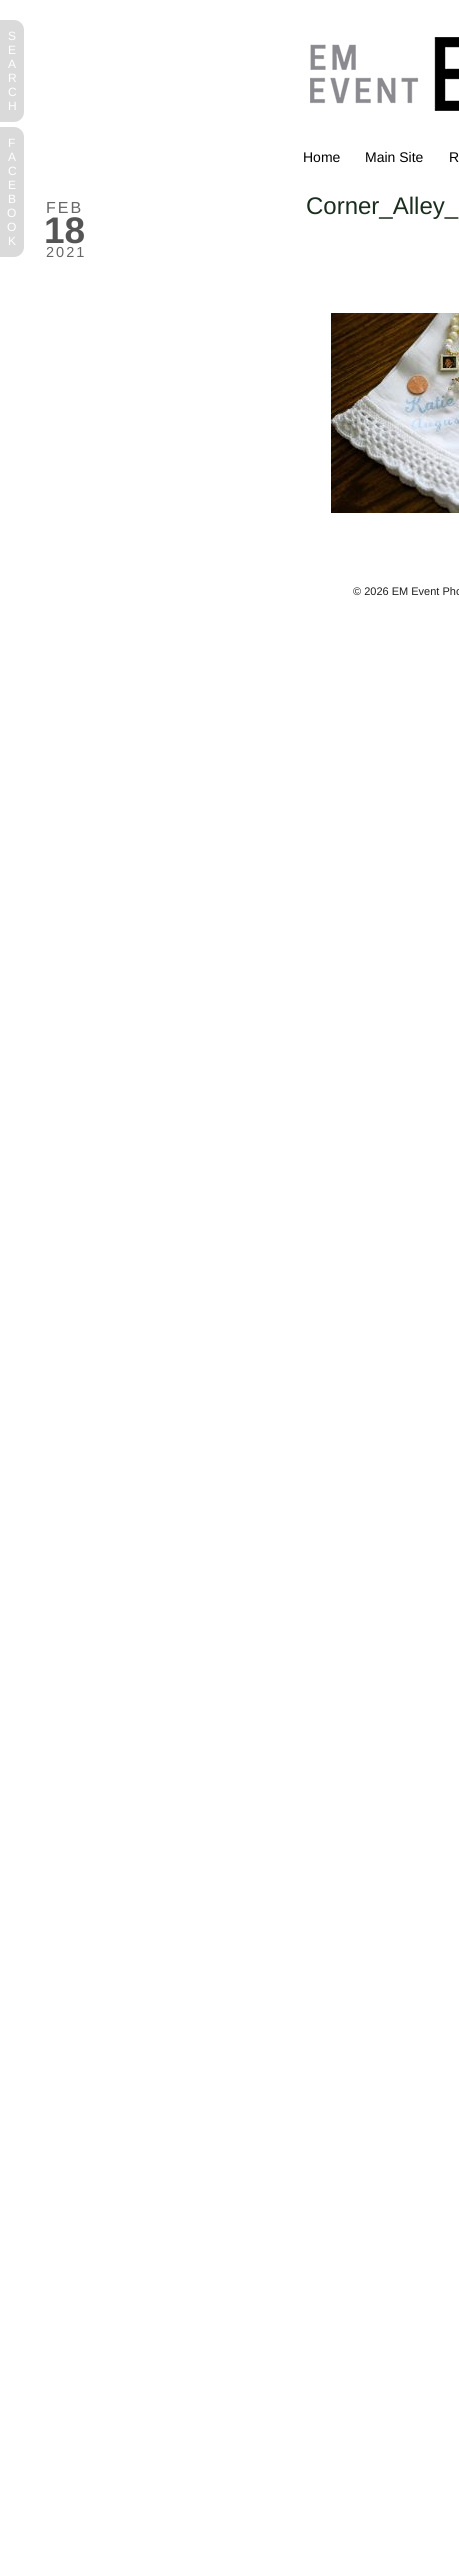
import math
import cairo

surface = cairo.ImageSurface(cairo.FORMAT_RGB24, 459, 2566)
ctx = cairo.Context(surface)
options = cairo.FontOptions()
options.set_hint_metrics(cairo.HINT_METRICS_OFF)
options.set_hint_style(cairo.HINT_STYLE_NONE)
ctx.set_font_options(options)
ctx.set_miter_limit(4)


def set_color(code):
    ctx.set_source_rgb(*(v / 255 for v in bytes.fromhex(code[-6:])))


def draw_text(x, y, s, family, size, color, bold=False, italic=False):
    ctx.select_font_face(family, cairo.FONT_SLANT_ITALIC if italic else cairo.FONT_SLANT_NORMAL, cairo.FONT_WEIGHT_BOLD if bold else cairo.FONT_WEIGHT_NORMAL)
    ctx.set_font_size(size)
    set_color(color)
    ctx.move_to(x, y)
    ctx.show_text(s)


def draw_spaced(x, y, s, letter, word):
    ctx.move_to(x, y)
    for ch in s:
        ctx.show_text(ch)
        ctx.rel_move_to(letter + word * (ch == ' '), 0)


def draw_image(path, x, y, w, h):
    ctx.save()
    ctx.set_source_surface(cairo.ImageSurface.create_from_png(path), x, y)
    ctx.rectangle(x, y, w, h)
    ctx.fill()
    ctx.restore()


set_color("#ffffff")
ctx.paint()
draw_image("assets/img1.png", 0, 0, 459, 150)
set_color("#dadada")
ctx.new_path()
ctx.move_to(0, 20)
ctx.line_to(14, 20)
ctx.curve_to(19.5, 20, 24, 24.5, 24, 30)
ctx.line_to(24, 112)
ctx.curve_to(24, 117.5, 19.5, 122, 14, 122)
ctx.line_to(0, 122)
ctx.close_path()
ctx.fill()
draw_text(8, 40, "S", "Liberation Sans", 12, "#ffffff")
draw_text(8, 54, "E", "Liberation Sans", 12, "#ffffff")
draw_text(8, 68, "A", "Liberation Sans", 12, "#ffffff")
draw_text(8, 82, "R", "Liberation Sans", 12, "#ffffff")
draw_text(8, 96, "C", "Liberation Sans", 12, "#ffffff")
draw_text(8, 110, "H", "Liberation Sans", 12, "#ffffff")
set_color("#dadada")
ctx.new_path()
ctx.move_to(0, 127)
ctx.line_to(14, 127)
ctx.curve_to(19.5, 127, 24, 131.5, 24, 137)
ctx.line_to(24, 247)
ctx.curve_to(24, 252.5, 19.5, 257, 14, 257)
ctx.line_to(0, 257)
ctx.close_path()
ctx.fill()
draw_text(8, 147, "F", "Liberation Sans", 12, "#ffffff")
draw_text(8, 161, "A", "Liberation Sans", 12, "#ffffff")
draw_text(8, 175, "C", "Liberation Sans", 12, "#ffffff")
draw_text(8, 189, "E", "Liberation Sans", 12, "#ffffff")
draw_text(8, 203, "B", "Liberation Sans", 12, "#ffffff")
draw_text(7, 217, "O", "Liberation Sans", 12, "#ffffff")
draw_text(7, 231, "O", "Liberation Sans", 12, "#ffffff")
draw_text(8, 245, "K", "Liberation Sans", 12, "#ffffff")
draw_text(303, 162, "Home", "Liberation Sans", 14, "#000000")
draw_text(365, 162, "Main Site", "Liberation Sans", 14, "#000000")
draw_text(449, 162, "R", "Liberation Sans", 14, "#000000")
ctx.set_font_size(16)
set_color("#666666")
draw_spaced(46, 213, "FEB", 2, 0)
draw_text(44, 243, "18", "Liberation Sans", 37, "#555555", bold=True)
ctx.select_font_face("Liberation Sans")
ctx.set_font_size(14.5)
set_color("#666666")
draw_spaced(46, 257, "2021", 2, 0)
draw_text(306, 214, "Corner_Alley_", "Liberation Sans", 24, "#1a2d1e")
draw_image("assets/img2.png", 331, 313, 128, 200)
draw_text(353, 595, "© 2026 EM Event Pho", "Liberation Sans", 11, "#1f1f1f")
surface.write_to_png("output.png")
